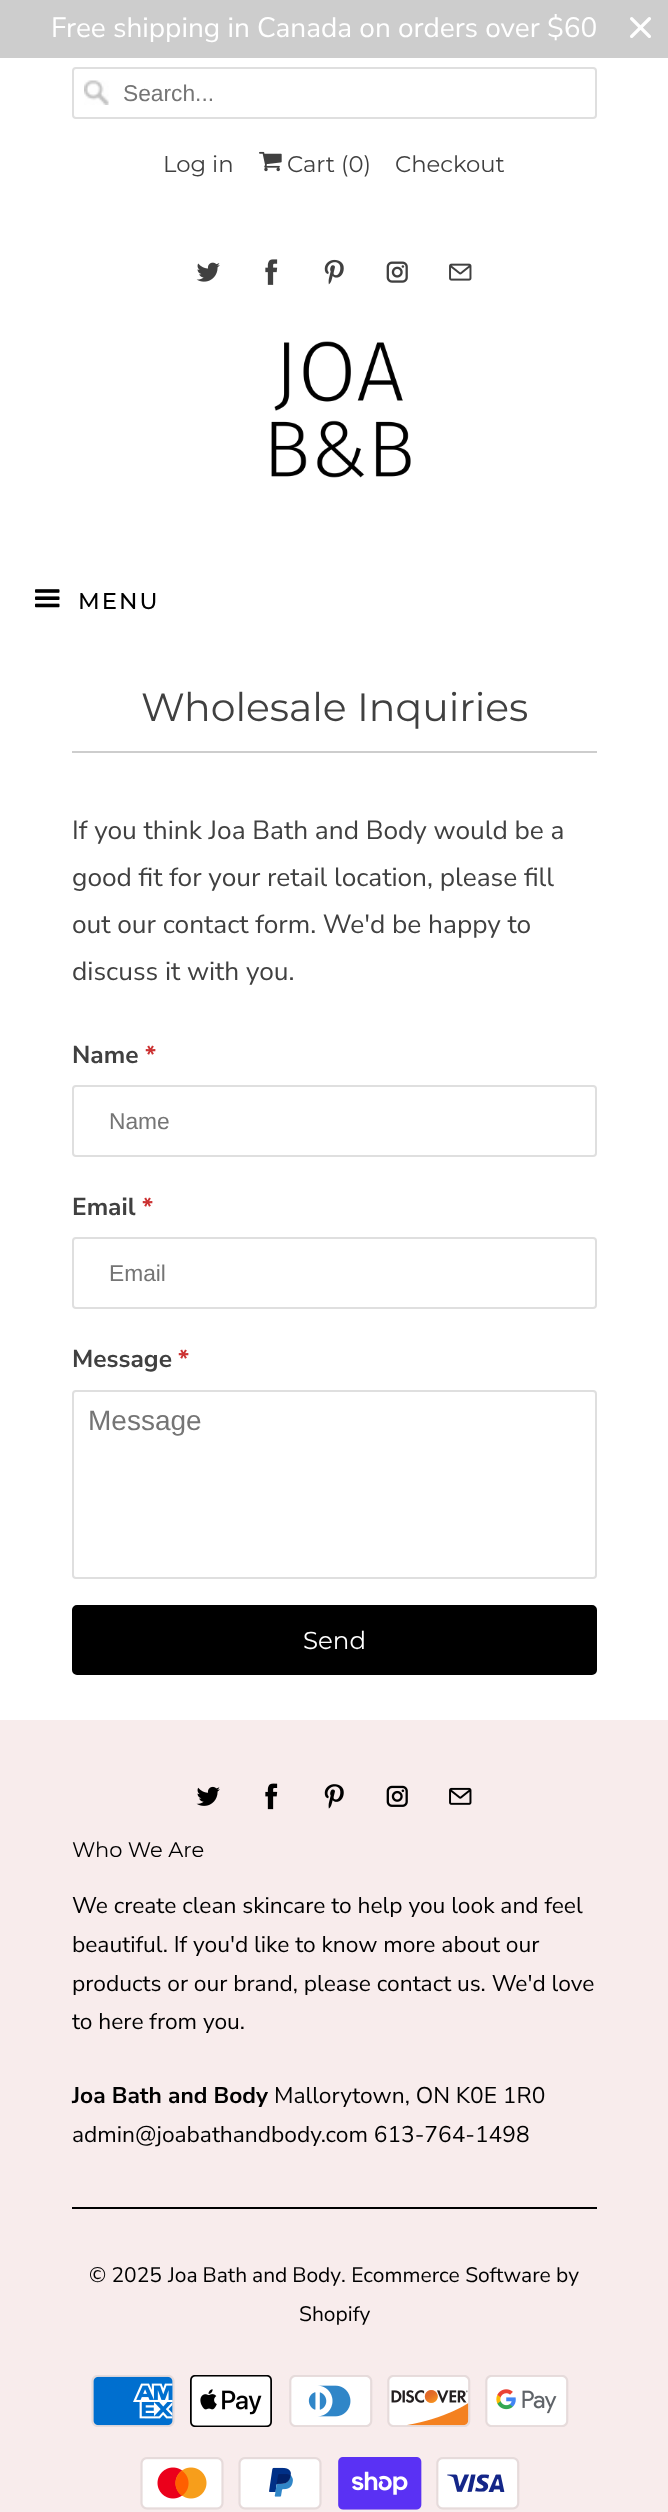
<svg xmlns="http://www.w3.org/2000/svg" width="668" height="2512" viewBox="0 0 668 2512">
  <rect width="100%" height="100%" fill="#ffffff"/>
  <rect x="0" y="0" width="668" height="58" fill="#cdcdcd"/>
  <text x="51" y="37" font-family="Nunito Sans" font-size="28" fill="#ffffff">Free shipping in Canada on orders over $60</text>
  <image x="630" y="17" width="21" height="21" href="img1.png"/>
  <image x="84" y="80" width="25" height="25" href="img2.png"/>
  <rect x="73" y="68" width="523" height="50" rx="3" fill="none" stroke="#dfdfdf" stroke-width="2"/>
  <text x="123" y="101" font-family="Liberation Sans" font-size="22.75" fill="#757575">Search...</text>
  <text x="163" y="172" font-family="Montserrat" font-size="22.75" fill="#404040">Log in</text>
  <image x="259" y="151" width="23" height="21" href="img3.png"/>
  <text x="287" y="172" font-family="Montserrat" font-size="22.75" fill="#404040">Cart (0)</text>
  <text x="395" y="172" font-family="Montserrat" font-size="22.75" fill="#404040">Checkout</text>
  <image x="196" y="262" width="24" height="20" href="img4.png"/>
  <image x="265" y="259" width="13" height="26" href="img5.png"/>
  <image x="324" y="259" width="20" height="26" href="img6.png"/>
  <image x="386" y="261" width="22" height="22" href="img7.png"/>
  <image x="449" y="263" width="23" height="18" href="img8.png"/>
  <image x="271" y="341" width="140" height="137" href="img9.png"/>
  <image x="35" y="589" width="25" height="19" href="img10.png"/>
  <text x="78" y="609" font-family="Montserrat" font-size="22.75" font-weight="500" letter-spacing="2" fill="#000000">MENU</text>
  <rect x="72" y="751" width="525" height="2" fill="#cdcdcd"/>
  <text x="141" y="721" font-family="Montserrat" font-size="39.4" fill="#404040">Wholesale Inquiries</text>
  <text x="72" y="839" font-family="Nunito Sans" font-size="26.25" fill="#404040">If you think Joa Bath and Body would be a</text>
  <text x="72" y="886" font-family="Nunito Sans" font-size="26.25" fill="#404040">good fit for your retail location, please fill</text>
  <text x="72" y="933" font-family="Nunito Sans" font-size="26.25" fill="#404040">out our contact form. We'd be happy to</text>
  <text x="72" y="980" font-family="Nunito Sans" font-size="26.25" fill="#404040">discuss it with you.</text>
  <text x="72" y="1063" font-family="Nunito Sans" font-size="24.5" font-weight="bold" fill="#404040">Name</text>
  <text x="145" y="1063" font-family="Nunito Sans" font-size="24.5" font-weight="bold" fill="#cc3333">*</text>
  <rect x="73" y="1086" width="523" height="70" rx="3" fill="none" stroke="#dfdfdf" stroke-width="2"/>
  <text x="109" y="1129" font-family="Liberation Sans" font-size="22.75" fill="#757575">Name</text>
  <text x="72" y="1215" font-family="Nunito Sans" font-size="24.5" font-weight="bold" fill="#404040">Email</text>
  <text x="142" y="1215" font-family="Nunito Sans" font-size="24.5" font-weight="bold" fill="#cc3333">*</text>
  <rect x="73" y="1238" width="523" height="70" rx="3" fill="none" stroke="#dfdfdf" stroke-width="2"/>
  <text x="109" y="1281" font-family="Liberation Sans" font-size="22.75" fill="#757575">Email</text>
  <text x="72" y="1367" font-family="Nunito Sans" font-size="24.5" font-weight="bold" fill="#404040">Message</text>
  <text x="178" y="1367" font-family="Nunito Sans" font-size="24.5" font-weight="bold" fill="#cc3333">*</text>
  <rect x="73" y="1391" width="523" height="187" rx="3" fill="none" stroke="#dfdfdf" stroke-width="2"/>
  <text x="88" y="1430" font-family="Liberation Sans" font-size="28" fill="#757575">Message</text>
  <rect x="73" y="1606" width="523" height="68" rx="4" fill="#000000" stroke="#000000" stroke-width="2"/>
  <text x="303" y="1649" font-family="Montserrat" font-size="24.5" fill="#ffffff">Send</text>
  <rect x="0" y="1720" width="668" height="792" fill="#f8ecec"/>
  <image x="196" y="1786" width="24" height="20" href="img11.png"/>
  <image x="265" y="1783" width="13" height="27" href="img12.png"/>
  <image x="324" y="1784" width="20" height="25" href="img13.png"/>
  <image x="386" y="1785" width="22" height="22" href="img14.png"/>
  <image x="449" y="1787" width="23" height="18" href="img15.png"/>
  <text x="72" y="1857" font-family="Montserrat" font-size="21" fill="#000000">Who We Are</text>
  <text x="72" y="1913" font-family="Nunito Sans" font-size="22.75" fill="#000000">We create clean skincare to help you look and feel</text>
  <text x="72" y="1952" font-family="Nunito Sans" font-size="22.75" fill="#000000">beautiful. If you'd like to know more about our</text>
  <text x="72" y="1991" font-family="Nunito Sans" font-size="22.75" fill="#000000">products or our brand, please contact us. We'd love</text>
  <text x="72" y="2029" font-family="Nunito Sans" font-size="22.75" fill="#000000">to here from you.</text>
  <text x="72" y="2103" font-family="Nunito Sans" font-size="22.75" font-weight="bold" fill="#000000">Joa Bath and Body</text>
  <text x="274" y="2103" font-family="Nunito Sans" font-size="22.75" fill="#000000">Mallorytown, ON K0E 1R0</text>
  <text x="72" y="2142" font-family="Nunito Sans" font-size="22.75" fill="#000000">admin@joabathandbody.com 613-764-1498</text>
  <rect x="72" y="2207" width="525" height="2" fill="#000000"/>
  <text x="89" y="2282" font-family="Nunito Sans" font-size="21" fill="#000000">© 2025</text>
  <text x="168" y="2282" word-spacing="-0.5" font-family="Nunito Sans" font-size="21" fill="#000000">Joa Bath and Body</text>
  <text x="341" y="2282" font-family="Nunito Sans" font-size="21" fill="#000000">. Ecommerce Software by</text>
  <text x="299" y="2321" font-family="Nunito Sans" font-size="21" fill="#000000">Shopify</text>
  <image x="91" y="2375" width="84" height="52" href="img16.png"/>
  <image x="190" y="2375" width="82" height="52" href="img17.png"/>
  <image x="289" y="2375" width="84" height="52" href="img18.png"/>
  <image x="387" y="2375" width="84" height="52" href="img19.png"/>
  <image x="485" y="2375" width="84" height="52" href="img20.png"/>
  <image x="140" y="2457" width="84" height="53" href="img21.png"/>
  <image x="238" y="2457" width="84" height="53" href="img22.png"/>
  <image x="338" y="2457" width="84" height="53" href="img23.png"/>
  <image x="436" y="2457" width="84" height="53" href="img24.png"/>
</svg>
